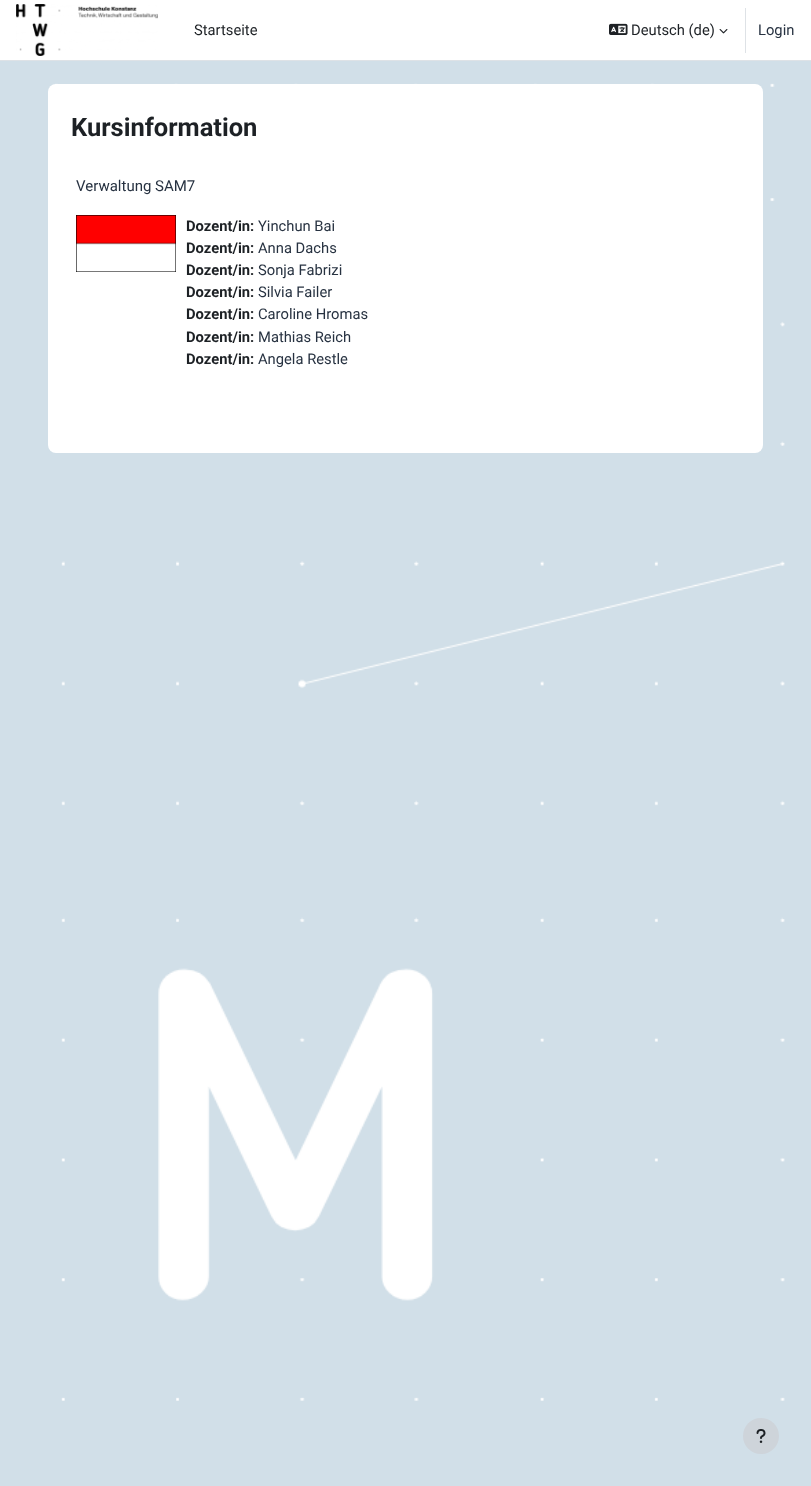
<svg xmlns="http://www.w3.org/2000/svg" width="811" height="1486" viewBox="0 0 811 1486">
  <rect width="100%" height="100%" fill="#ffffff"/>
  <image x="0" y="61" width="811" height="1425" href="img1.png"/>
  <rect x="0" y="60" width="811" height="1" fill="#dee2e6"/>
  <image x="16" y="4" width="142" height="52" href="img2.png"/>
  <text x="194" y="35" font-family="Roboto" font-size="14.75" fill="#1d2125">Startseite</text>
  <image x="609" y="23" width="19" height="12" href="img3.png"/>
  <text x="631" y="35" font-family="Roboto" font-size="14.75" fill="#1d2125">Deutsch (de)</text>
  <image x="719" y="29" width="9" height="5" href="img4.png"/>
  <rect x="745" y="8" width="1" height="45" fill="#dee2e6"/>
  <text x="758" y="35" font-family="Roboto" font-size="14.75" fill="#273241">Login</text>
  <rect x="48" y="84" width="715" height="369" rx="8" fill="#ffffff"/>
  <text x="71" y="136" font-family="Roboto" font-size="25.5" font-weight="bold" fill="#1d2125">Kursinformation</text>
  <text x="76" y="191" font-family="Roboto" font-size="15" fill="#273241">Verwaltung SAM7</text>
  <image x="76" y="215" width="100" height="57" href="img5.png"/>
  <text x="186" y="231" font-family="Roboto" font-size="14.75" font-weight="bold" fill="#1d2125">Dozent/in:</text>
  <text x="258" y="231" font-family="Roboto" font-size="14.75" fill="#273241">Yinchun Bai</text>
  <text x="186" y="253" font-family="Roboto" font-size="14.75" font-weight="bold" fill="#1d2125">Dozent/in:</text>
  <text x="258" y="253" font-family="Roboto" font-size="14.75" fill="#273241">Anna Dachs</text>
  <text x="186" y="275" font-family="Roboto" font-size="14.75" font-weight="bold" fill="#1d2125">Dozent/in:</text>
  <text x="258" y="275" font-family="Roboto" font-size="14.75" fill="#273241">Sonja Fabrizi</text>
  <text x="186" y="297" font-family="Roboto" font-size="14.75" font-weight="bold" fill="#1d2125">Dozent/in:</text>
  <text x="258" y="297" font-family="Roboto" font-size="14.75" fill="#273241">Silvia Failer</text>
  <text x="186" y="319" font-family="Roboto" font-size="14.75" font-weight="bold" fill="#1d2125">Dozent/in:</text>
  <text x="258" y="319" font-family="Roboto" font-size="14.75" fill="#273241">Caroline Hromas</text>
  <text x="186" y="342" font-family="Roboto" font-size="14.75" font-weight="bold" fill="#1d2125">Dozent/in:</text>
  <text x="258" y="342" font-family="Roboto" font-size="14.75" fill="#273241">Mathias Reich</text>
  <text x="186" y="364" font-family="Roboto" font-size="14.75" font-weight="bold" fill="#1d2125">Dozent/in:</text>
  <text x="258" y="364" font-family="Roboto" font-size="14.75" fill="#273241">Angela Restle</text>
  <circle cx="761" cy="1436" r="18" fill="#ced4da"/>
  <image x="756" y="1429" width="10" height="14" href="img6.png"/>
</svg>
